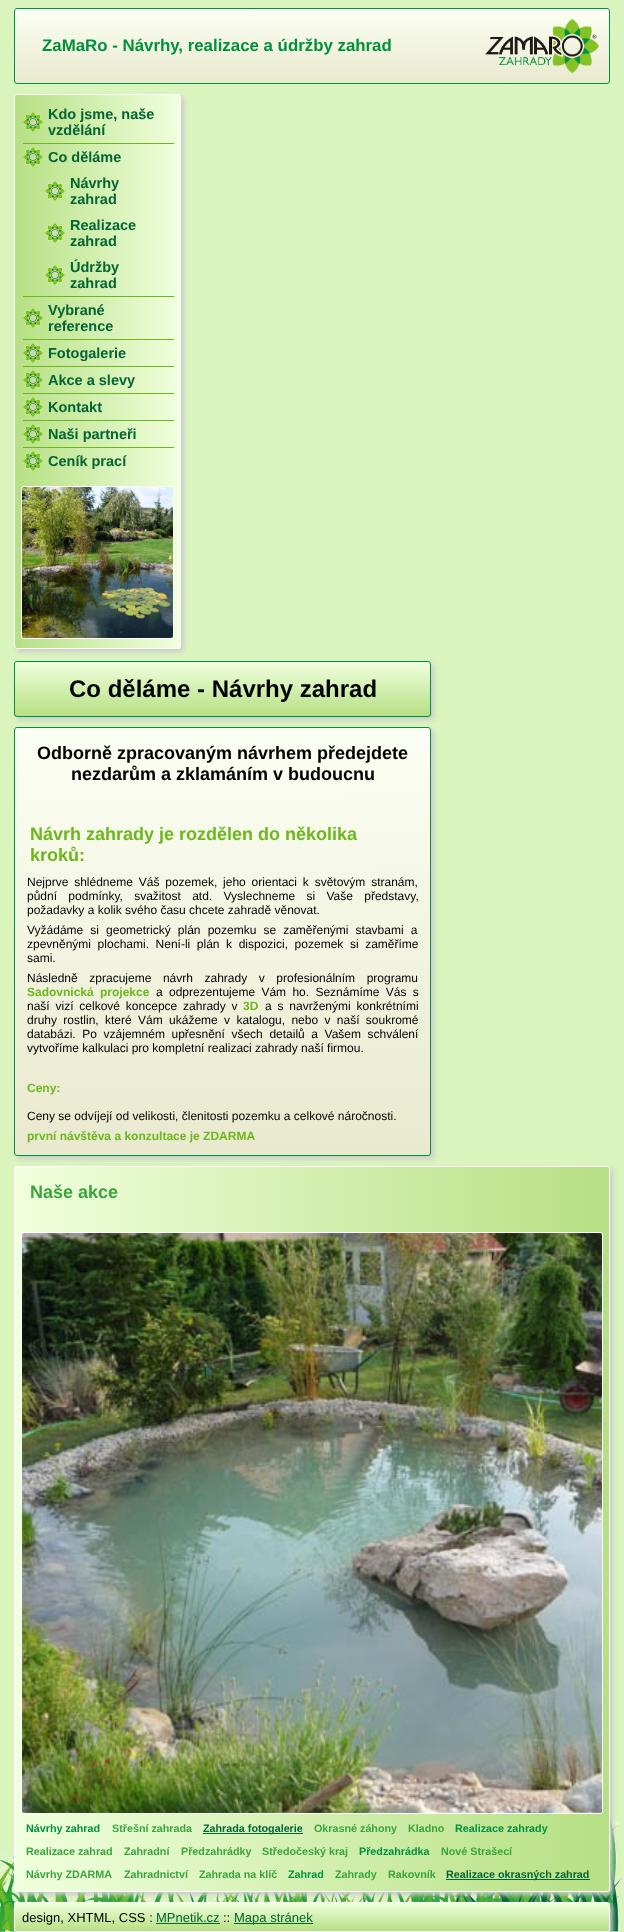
<svg xmlns="http://www.w3.org/2000/svg" width="624" height="1932" viewBox="0 0 624 1932">
  <defs>
    <clipPath id="clip1"><rect x="14" y="8" width="596" height="76" rx="3"/></clipPath>
    <linearGradient id="g1" gradientUnits="userSpaceOnUse" x1="312" y1="9" x2="312" y2="83"><stop offset="0" stop-color="#fcfff4"/><stop offset="1" stop-color="#e9e9ce"/></linearGradient>
    <filter id="blur1" x="-50%" y="-200%" width="200%" height="500%"><feGaussianBlur stdDeviation="2.5"/></filter>
    <clipPath id="clip2"><rect x="14" y="94" width="167" height="555" rx="3"/></clipPath>
    <linearGradient id="g2" gradientUnits="userSpaceOnUse" x1="15" y1="372" x2="180" y2="372"><stop offset="0" stop-color="#b6e084"/><stop offset="1" stop-color="#f0ffdd"/></linearGradient>
    <clipPath id="clip3"><rect x="14" y="661" width="417" height="56" rx="3"/></clipPath>
    <linearGradient id="g3" gradientUnits="userSpaceOnUse" x1="223" y1="662" x2="223" y2="716"><stop offset="0" stop-color="#f0ffdd"/><stop offset="1" stop-color="#b6e084"/></linearGradient>
    <clipPath id="clip4"><rect x="14" y="727" width="417" height="429" rx="3"/></clipPath>
    <linearGradient id="g4" gradientUnits="userSpaceOnUse" x1="222" y1="728" x2="223" y2="1155"><stop offset="0" stop-color="#fcfff4"/><stop offset="1" stop-color="#e9e9ce"/></linearGradient>
    <clipPath id="clip5"><rect x="14" y="1902" width="596" height="30" rx="3"/></clipPath>
    <linearGradient id="g5" gradientUnits="userSpaceOnUse" x1="312" y1="1903" x2="312" y2="1931"><stop offset="0" stop-color="#f0ffdd"/><stop offset="1" stop-color="#b6e084"/></linearGradient>
    <clipPath id="clip6"><rect x="14" y="1166" width="596" height="726" rx="3"/></clipPath>
    <linearGradient id="g6" gradientUnits="userSpaceOnUse" x1="15" y1="1529" x2="609" y2="1529"><stop offset="0" stop-color="#f0ffdd"/><stop offset="1" stop-color="#b6e084"/></linearGradient>
  </defs>
  <rect width="100%" height="100%" fill="#daf4bd"/>
  <image x="0" y="1804" width="624" height="128" href="img1.png"/>
  <g clip-path="url(#clip1)">
    <rect x="14" y="9" width="596" height="74" fill="url(#g1)"/>
  </g>
  <rect x="14.5" y="8.5" width="595" height="75" rx="2.5" fill="none" stroke="#00913d"/>
  <image x="485" y="19" width="114" height="54" href="img2.png"/>
  <text x="42" y="51" font-family="Liberation Sans" font-size="16.85" font-weight="bold" fill="#00913d">ZaMaRo - Návrhy, realizace a údržby zahrad</text>
  <rect x="17" y="97" width="167" height="555" rx="3" fill="#cccccc" filter="url(#blur1)"/>
  <g clip-path="url(#clip2)">
    <rect x="15" y="94" width="165" height="555" fill="url(#g2)"/>
  </g>
  <rect x="14.5" y="94.5" width="166" height="554" rx="2.5" fill="none" stroke="#ffffff"/>
  <rect x="23" y="143" width="151" height="1" fill="#6db71d"/>
  <image x="23" y="112" width="20" height="20" href="img3.png"/>
  <text x="48" y="119" font-family="Liberation Sans" font-size="14.5" font-weight="bold" fill="#046434">Kdo jsme, naše</text>
  <text x="48" y="135" font-family="Liberation Sans" font-size="14.5" font-weight="bold" fill="#046434">vzdělání</text>
  <rect x="23" y="296" width="151" height="1" fill="#6db71d"/>
  <image x="23" y="147" width="20" height="20" href="img3.png"/>
  <text x="48" y="162" font-family="Liberation Sans" font-size="14.5" font-weight="bold" fill="#046434">Co děláme</text>
  <image x="45" y="181" width="20" height="20" href="img4.png"/>
  <text x="70" y="188" font-family="Liberation Sans" font-size="14.5" font-weight="bold" fill="#046434">Návrhy</text>
  <text x="70" y="204" font-family="Liberation Sans" font-size="14.5" font-weight="bold" fill="#046434">zahrad</text>
  <image x="45" y="223" width="20" height="20" href="img4.png"/>
  <text x="70" y="230" font-family="Liberation Sans" font-size="14.5" font-weight="bold" fill="#046434">Realizace</text>
  <text x="70" y="246" font-family="Liberation Sans" font-size="14.5" font-weight="bold" fill="#046434">zahrad</text>
  <image x="45" y="265" width="20" height="20" href="img4.png"/>
  <text x="70" y="272" font-family="Liberation Sans" font-size="14.5" font-weight="bold" fill="#046434">Údržby</text>
  <text x="70" y="288" font-family="Liberation Sans" font-size="14.5" font-weight="bold" fill="#046434">zahrad</text>
  <rect x="23" y="339" width="151" height="1" fill="#6db71d"/>
  <image x="23" y="308" width="20" height="20" href="img3.png"/>
  <text x="48" y="315" font-family="Liberation Sans" font-size="14.5" font-weight="bold" fill="#046434">Vybrané</text>
  <text x="48" y="331" font-family="Liberation Sans" font-size="14.5" font-weight="bold" fill="#046434">reference</text>
  <rect x="23" y="366" width="151" height="1" fill="#6db71d"/>
  <image x="23" y="343" width="20" height="20" href="img3.png"/>
  <text x="48" y="358" font-family="Liberation Sans" font-size="14.5" font-weight="bold" fill="#046434">Fotogalerie</text>
  <rect x="23" y="393" width="151" height="1" fill="#6db71d"/>
  <image x="23" y="370" width="20" height="20" href="img3.png"/>
  <text x="48" y="385" font-family="Liberation Sans" font-size="14.5" font-weight="bold" fill="#046434">Akce a slevy</text>
  <rect x="23" y="420" width="151" height="1" fill="#6db71d"/>
  <image x="23" y="397" width="20" height="20" href="img3.png"/>
  <text x="48" y="412" font-family="Liberation Sans" font-size="14.5" font-weight="bold" fill="#046434">Kontakt</text>
  <rect x="23" y="447" width="151" height="1" fill="#6db71d"/>
  <image x="23" y="424" width="20" height="20" href="img3.png"/>
  <text x="48" y="439" font-family="Liberation Sans" font-size="14.5" font-weight="bold" fill="#046434">Naši partneři</text>
  <image x="23" y="451" width="20" height="20" href="img3.png"/>
  <text x="48" y="466" font-family="Liberation Sans" font-size="14.5" font-weight="bold" fill="#046434">Ceník prací</text>
  <rect x="21.5" y="486.5" width="152" height="152" rx="2.5" fill="none" stroke="#ffffff"/>
  <image x="22" y="487" width="151" height="151" href="img5.png"/>
  <rect x="17" y="664" width="417" height="56" rx="3" fill="#cccccc" filter="url(#blur1)"/>
  <g clip-path="url(#clip3)">
    <rect x="14" y="662" width="417" height="54" fill="url(#g3)"/>
  </g>
  <rect x="14.5" y="661.5" width="416" height="55" rx="2.5" fill="none" stroke="#00913d"/>
  <text x="69" y="697" font-family="Liberation Sans" font-size="24" font-weight="bold" fill="#000000">Co děláme - Návrhy zahrad</text>
  <rect x="17" y="730" width="417" height="429" rx="3" fill="#cccccc" filter="url(#blur1)"/>
  <g clip-path="url(#clip4)">
    <rect x="14" y="728" width="417" height="427" fill="url(#g4)"/>
  </g>
  <rect x="14.5" y="727.5" width="416" height="428" rx="2.5" fill="none" stroke="#00913d"/>
  <text x="37" y="759" font-family="Liberation Sans" font-size="18" font-weight="bold" fill="#000000">Odborně zpracovaným návrhem předejdete</text>
  <text x="71" y="780" font-family="Liberation Sans" font-size="18" font-weight="bold" fill="#000000">nezdarům a zklamáním v budoucnu</text>
  <text x="30" y="840" font-family="Liberation Sans" font-size="18" font-weight="bold" fill="#6db71d">Návrh zahrady je rozdělen do několika</text>
  <text x="30" y="861" font-family="Liberation Sans" font-size="18" font-weight="bold" fill="#6db71d">kroků:</text>
  <text x="27" y="886" word-spacing="2.5" font-family="Liberation Sans" font-size="12" fill="#000000">Nejprve shlédneme Váš pozemek, jeho orientaci k světovým stranám,</text>
  <text x="27" y="900" word-spacing="8" font-family="Liberation Sans" font-size="12" fill="#000000">půdní podmínky, svažitost atd. Vyslechneme si Vaše představy,</text>
  <text x="27" y="914" font-family="Liberation Sans" font-size="12" fill="#000000">požadavky a kolik svého času chcete zahradě věnovat.</text>
  <text x="27" y="934" word-spacing="3.75" font-family="Liberation Sans" font-size="12" fill="#000000">Vyžádáme si geometrický plán pozemku se zaměřenými stavbami a</text>
  <text x="27" y="948" word-spacing="3.25" font-family="Liberation Sans" font-size="12" fill="#000000">zpevněnými plochami. Není-li plán k dispozici, pozemek si zaměříme</text>
  <text x="27" y="962" font-family="Liberation Sans" font-size="12" fill="#000000">sami.</text>
  <text x="27" y="982" word-spacing="8.25" font-family="Liberation Sans" font-size="12" fill="#000000">Následně zpracujeme návrh zahrady v profesionálním programu</text>
  <text x="27" y="996" word-spacing="3" font-family="Liberation Sans" font-size="12" font-weight="bold" fill="#6db71d">Sadovnická projekce</text>
  <text x="156" y="996" word-spacing="3" font-family="Liberation Sans" font-size="12" fill="#000000">a odprezentujeme Vám ho. Seznámíme Vás s</text>
  <text x="27" y="1010" word-spacing="2.5" font-family="Liberation Sans" font-size="12" fill="#000000">naší vizí celkové koncepce zahrady v</text>
  <text x="243" y="1010" font-family="Liberation Sans" font-size="12" font-weight="bold" fill="#6db71d">3D</text>
  <text x="265" y="1010" word-spacing="2.5" font-family="Liberation Sans" font-size="12" fill="#000000">a s navrženými konkrétními</text>
  <text x="27" y="1024" word-spacing="3" font-family="Liberation Sans" font-size="12" fill="#000000">druhy rostlin, které Vám ukážeme v katalogu, nebo v naší soukromé</text>
  <text x="27" y="1038" word-spacing="3.25" font-family="Liberation Sans" font-size="12" fill="#000000">databázi. Po vzájemném upřesnění všech detailů a Vašem schválení</text>
  <text x="27" y="1052" font-family="Liberation Sans" font-size="12" fill="#000000">vytvoříme kalkulaci pro kompletní realizaci zahrady naší firmou.</text>
  <text x="27" y="1092" font-family="Liberation Sans" font-size="12" font-weight="bold" fill="#6db71d">Ceny:</text>
  <text x="27" y="1120" font-family="Liberation Sans" font-size="12" fill="#000000">Ceny se odvíjejí od velikosti, členitosti pozemku a celkové náročnosti.</text>
  <text x="27" y="1140" font-family="Liberation Sans" font-size="12" font-weight="bold" fill="#6db71d">první návštěva a konzultace je ZDARMA</text>
  <rect x="17" y="1905" width="596" height="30" rx="3" fill="#cccccc" filter="url(#blur1)"/>
  <g clip-path="url(#clip5)">
    <rect x="14" y="1903" width="596" height="28" fill="url(#g5)"/>
  </g>
  <rect x="14.5" y="1902.5" width="595" height="29" rx="2.5" fill="none" stroke="#ffffff"/>
  <rect x="17" y="1169" width="596" height="726" rx="3" fill="#cccccc" filter="url(#blur1)"/>
  <g clip-path="url(#clip6)">
    <rect x="15" y="1166" width="594" height="726" fill="url(#g6)"/>
  </g>
  <rect x="14.5" y="1166.5" width="595" height="725" rx="2.5" fill="none" stroke="#ffffff"/>
  <text x="30" y="1198" font-family="Liberation Sans" font-size="18" font-weight="bold" fill="#3aa43d">Naše akce</text>
  <rect x="21.5" y="1232.5" width="581" height="581" rx="2.5" fill="none" stroke="#ffffff"/>
  <image x="22" y="1233" width="580" height="580" href="img6.png"/>
  <text x="26" y="1832" font-family="Liberation Sans" font-size="10.75" font-weight="bold" fill="#00913d">Návrhy zahrad</text>
  <text x="112" y="1832" font-family="Liberation Sans" font-size="10.75" font-weight="bold" fill="#3aa43d">Střešní zahrada</text>
  <rect x="203" y="1833" width="100" height="1" fill="#046434"/>
  <text x="203" y="1832" font-family="Liberation Sans" font-size="10.75" font-weight="bold" fill="#046434">Zahrada fotogalerie</text>
  <text x="314" y="1832" font-family="Liberation Sans" font-size="10.75" font-weight="bold" fill="#3aa43d">Okrasné záhony</text>
  <text x="408" y="1832" font-family="Liberation Sans" font-size="10.75" font-weight="bold" fill="#3aa43d">Kladno</text>
  <text x="455" y="1832" font-family="Liberation Sans" font-size="10.75" font-weight="bold" fill="#00913d">Realizace zahrady</text>
  <text x="26" y="1855" font-family="Liberation Sans" font-size="10.75" font-weight="bold" fill="#3aa43d">Realizace zahrad</text>
  <text x="124" y="1855" font-family="Liberation Sans" font-size="10.75" font-weight="bold" fill="#3aa43d">Zahradní</text>
  <text x="181" y="1855" font-family="Liberation Sans" font-size="10.75" font-weight="bold" fill="#3aa43d">Předzahrádky</text>
  <text x="262" y="1855" font-family="Liberation Sans" font-size="10.75" font-weight="bold" fill="#3aa43d">Středočeský kraj</text>
  <text x="359" y="1855" font-family="Liberation Sans" font-size="10.75" font-weight="bold" fill="#00913d">Předzahrádka</text>
  <text x="441" y="1855" font-family="Liberation Sans" font-size="10.75" font-weight="bold" fill="#3aa43d">Nové Strašecí</text>
  <text x="26" y="1878" font-family="Liberation Sans" font-size="10.75" font-weight="bold" fill="#3aa43d">Návrhy ZDARMA</text>
  <text x="124" y="1878" font-family="Liberation Sans" font-size="10.75" font-weight="bold" fill="#3aa43d">Zahradnictví</text>
  <text x="199" y="1878" font-family="Liberation Sans" font-size="10.75" font-weight="bold" fill="#3aa43d">Zahrada na klíč</text>
  <text x="288" y="1878" font-family="Liberation Sans" font-size="10.75" font-weight="bold" fill="#00913d">Zahrad</text>
  <text x="335" y="1878" font-family="Liberation Sans" font-size="10.75" font-weight="bold" fill="#3aa43d">Zahrady</text>
  <text x="388" y="1878" font-family="Liberation Sans" font-size="10.75" font-weight="bold" fill="#3aa43d">Rakovník</text>
  <rect x="446" y="1879" width="144" height="1" fill="#046434"/>
  <text x="446" y="1878" font-family="Liberation Sans" font-size="10.75" font-weight="bold" fill="#046434">Realizace okrasných zahrad</text>
  <text x="22" y="1922" font-family="Liberation Sans" font-size="13" fill="#000000">design, XHTML, CSS :</text>
  <text x="156" y="1922" font-family="Liberation Sans" font-size="13" fill="#046434">MPnetik.cz</text>
  <rect x="156" y="1923" width="64" height="1" fill="#046434"/>
  <text x="223" y="1922" font-family="Liberation Sans" font-size="13" fill="#000000">::</text>
  <rect x="234" y="1923" width="79" height="1" fill="#046434"/>
  <text x="234" y="1922" font-family="Liberation Sans" font-size="13" fill="#046434">Mapa stránek</text>
</svg>
